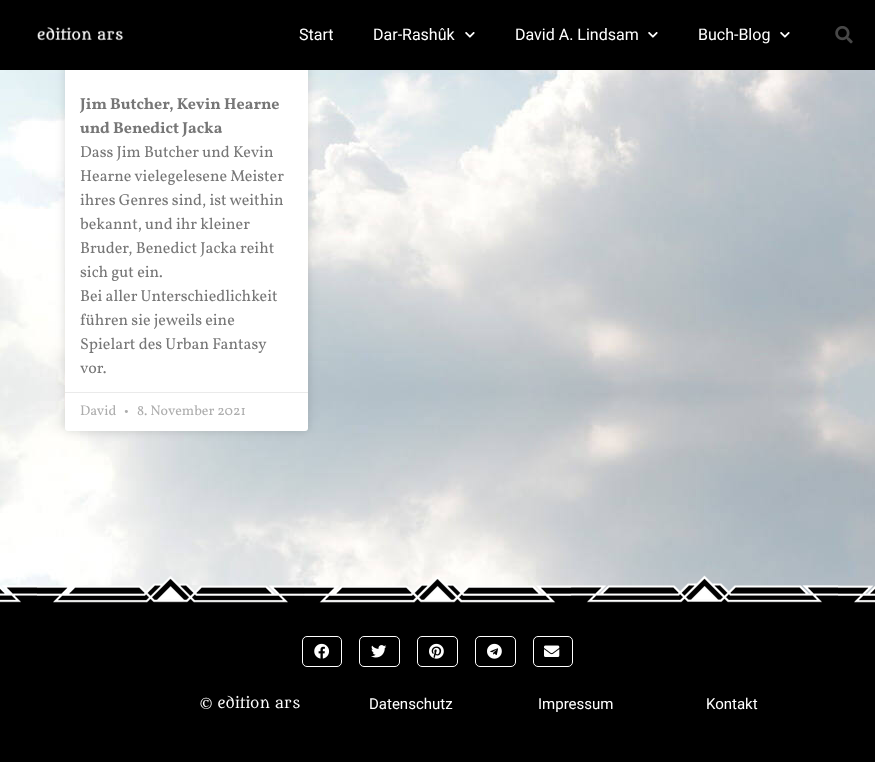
<svg xmlns="http://www.w3.org/2000/svg" width="875" height="762" viewBox="0 0 875 762">
  <defs>
    <filter id="blur1" x="-50%" y="-200%" width="200%" height="500%"><feGaussianBlur stdDeviation="5"/></filter>
  </defs>
  <rect width="100%" height="100%" fill="#000000"/>
  <image x="0" y="70" width="875" height="532" href="img4.png"/>
  <rect x="65" y="-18" width="243" height="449" rx="3" fill="#000000" fill-opacity="0.15" filter="url(#blur1)"/>
  <rect x="65" y="-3" width="243" height="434" rx="3" fill="#ffffff"/>
  <rect x="65" y="0" width="243" height="70" fill="#000000"/>
  <image x="37" y="27" width="87" height="14" href="img1.png"/>
  <text x="299" y="40" font-family="Roboto" font-size="16" fill="#ffffff">Start</text>
  <text x="373" y="40" font-family="Roboto" font-size="16" fill="#ffffff">Dar-Rashûk</text>
  <image x="465" y="32" width="10" height="6" href="img2.png"/>
  <text x="515" y="40" font-family="Roboto" font-size="16" fill="#ffffff">David A. Lindsam</text>
  <image x="648" y="32" width="10" height="6" href="img2.png"/>
  <text x="698" y="40" font-family="Roboto" font-size="16" fill="#ffffff">Buch-Blog</text>
  <image x="780" y="32" width="10" height="6" href="img2.png"/>
  <image x="835" y="26" width="18" height="18" href="img3.png"/>
  <text x="80" y="109" font-family="Vollkorn" font-size="16" font-weight="bold" fill="#777777">Jim Butcher, Kevin Hearne</text>
  <text x="80" y="133" font-family="Vollkorn" font-size="16" font-weight="bold" fill="#777777">und Benedict Jacka</text>
  <text x="80" y="157" font-family="Vollkorn" font-size="16" fill="#777777">Dass Jim Butcher und Kevin</text>
  <text x="80" y="181" font-family="Vollkorn" font-size="16" fill="#777777">Hearne vielegelesene Meister</text>
  <text x="80" y="205" font-family="Vollkorn" font-size="16" fill="#777777">ihres Genres sind, ist weithin</text>
  <text x="80" y="229" font-family="Vollkorn" font-size="16" fill="#777777">bekannt, und ihr kleiner</text>
  <text x="80" y="253" font-family="Vollkorn" font-size="16" fill="#777777">Bruder, Benedict Jacka reiht</text>
  <text x="80" y="277" font-family="Vollkorn" font-size="16" fill="#777777">sich gut ein.</text>
  <text x="80" y="301" font-family="Vollkorn" font-size="16" fill="#777777">Bei aller Unterschiedlichkeit</text>
  <text x="80" y="325" font-family="Vollkorn" font-size="16" fill="#777777">führen sie jeweils eine</text>
  <text x="80" y="349" font-family="Vollkorn" font-size="16" fill="#777777">Spielart des Urban Fantasy</text>
  <text x="80" y="373" font-family="Vollkorn" font-size="16" fill="#777777">vor.</text>
  <rect x="65" y="392" width="243" height="1" fill="#eaeaea"/>
  <text x="80" y="415" font-family="Vollkorn" font-size="14" fill="#adadad">David</text>
  <text x="124" y="415" font-family="Vollkorn" font-size="14" fill="#adadad">•</text>
  <text x="137" y="415" font-family="Vollkorn" font-size="14" fill="#adadad">8. November 2021</text>
  <image x="0" y="575" width="875" height="51" href="img5.png"/>
  <rect x="302.5" y="636.5" width="39" height="30" rx="4.5" fill="none" stroke="#ffffff"/>
  <image x="314" y="643" width="16" height="16" href="img6.png"/>
  <rect x="359.5" y="636.5" width="40" height="30" rx="4.5" fill="none" stroke="#ffffff"/>
  <image x="371" y="645" width="16" height="13" href="img7.png"/>
  <rect x="417.5" y="636.5" width="40" height="30" rx="4.5" fill="none" stroke="#ffffff"/>
  <image x="429" y="643" width="15" height="16" href="img8.png"/>
  <rect x="475.5" y="636.5" width="40" height="30" rx="4.5" fill="none" stroke="#ffffff"/>
  <image x="487" y="643" width="15" height="16" href="img9.png"/>
  <rect x="533.5" y="636.5" width="39" height="30" rx="4.5" fill="none" stroke="#ffffff"/>
  <image x="544" y="645" width="16" height="12" href="img10.png"/>
  <text x="200" y="708" font-family="Metamorphous" font-size="14" fill="#ffffff">© edition ars</text>
  <text x="369" y="709" font-family="Roboto" font-size="15" fill="#ffffff">Datenschutz</text>
  <text x="538" y="709" font-family="Roboto" font-size="15" fill="#ffffff">Impressum</text>
  <text x="706" y="709" font-family="Roboto" font-size="15" fill="#ffffff">Kontakt</text>
</svg>
